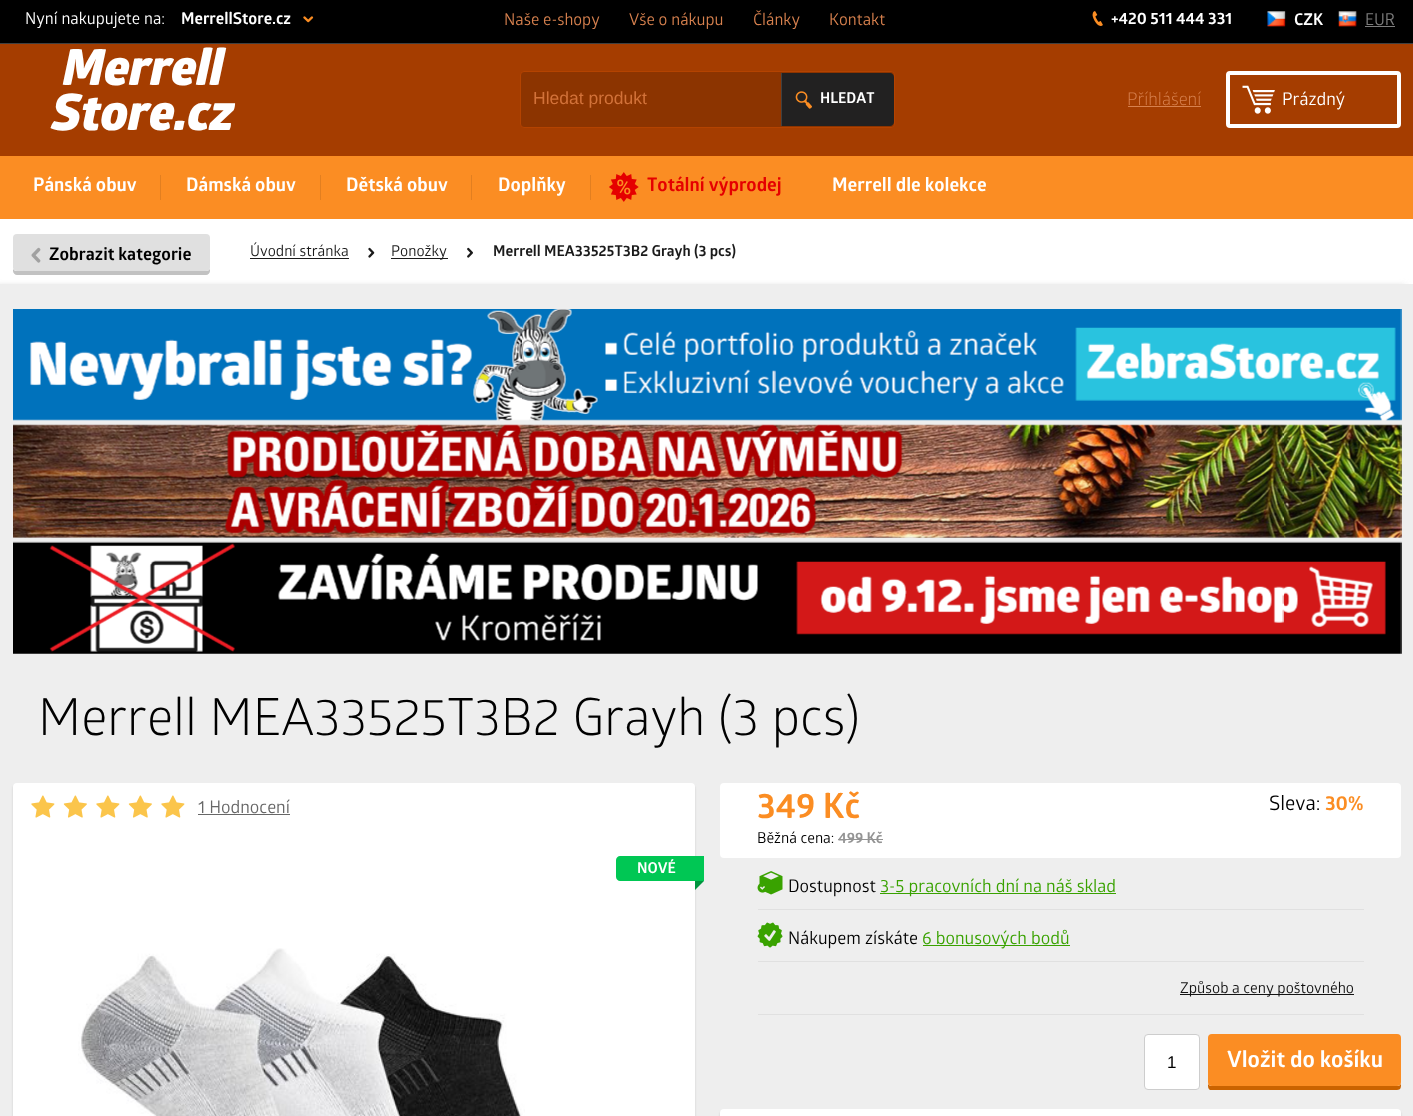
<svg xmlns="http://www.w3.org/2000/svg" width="1413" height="1116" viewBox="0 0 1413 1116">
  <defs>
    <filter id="blur1" x="-50%" y="-200%" width="200%" height="500%"><feGaussianBlur stdDeviation="3"/></filter>
    <filter id="blur2" x="-50%" y="-200%" width="200%" height="500%"><feGaussianBlur stdDeviation="1"/></filter>
  </defs>
  <rect width="100%" height="100%" fill="#ffffff"/>
  <rect x="0" y="44" width="1413" height="112" fill="#a53d00"/>
  <rect x="0" y="0" width="1413" height="43" fill="#000000"/>
  <text x="504" y="25" font-family="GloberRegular" font-size="16.25" fill="#d7814e">Naše e-shopy</text>
  <text x="629" y="25" font-family="GloberRegular" font-size="16.25" fill="#d7814e">Vše o nákupu</text>
  <text x="753" y="25" font-family="GloberRegular" font-size="16.25" fill="#d7814e">Články</text>
  <text x="829" y="25" font-family="GloberRegular" font-size="16.25" fill="#d7814e">Kontakt</text>
  <text x="63" y="85" font-family="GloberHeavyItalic" font-size="50" fill="#ffffff">Merrell</text>
  <text x="52" y="130" font-family="GloberHeavyItalic" font-size="50" fill="#ffffff">Store.cz</text>
  <rect x="520.5" y="71.5" width="374" height="56" rx="3.5" fill="#8c3400" stroke="#b44300"/>
  <text x="533" y="104" font-family="Liberation Sans" font-size="17.5" fill="#d27239">Hledat produkt</text>
  <path d="M781 73H890C892 73 894 75 894 77V122C894 124 892 126 890 126H781Z" fill="#222121"/>
  <image x="795" y="91" width="17" height="18" href="img1.png"/>
  <rect x="781" y="73" width="1" height="53" fill="#404040"/>
  <text x="820" y="103" font-family="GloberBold" font-size="15" fill="#ffffff">HLEDAT</text>
  <text x="1127" y="105" font-family="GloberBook" font-size="17.5" fill="#d7814e">Příhlášení</text>
  <rect x="1128" y="106" width="73" height="1" fill="#d7814e"/>
  <rect x="1228" y="73" width="171" height="53" rx="2" fill="none" stroke="#ffffff" stroke-width="4"/>
  <image x="1242" y="85" width="33" height="29" href="img2.png"/>
  <text x="1282" y="105" font-family="GloberRegular" font-size="17.5" fill="#ffffff">Prázdný</text>
  <rect x="0" y="156" width="1413" height="63" fill="#fb8d23"/>
  <text x="33" y="191" font-family="GloberBold" font-size="18.75" fill="#ffffff">Pánská obuv</text>
  <rect x="160" y="175" width="1" height="25" fill="#e27f20"/>
  <text x="186" y="191" font-family="GloberBold" font-size="18.75" fill="#ffffff">Dámská obuv</text>
  <rect x="320" y="175" width="1" height="25" fill="#e27f20"/>
  <text x="346" y="191" font-family="GloberBold" font-size="18.75" fill="#ffffff">Dětská obuv</text>
  <rect x="471" y="175" width="1" height="25" fill="#e27f20"/>
  <text x="498" y="191" font-family="GloberBold" font-size="18.75" fill="#ffffff">Doplňky</text>
  <rect x="590" y="175" width="1" height="25" fill="#e27f20"/>
  <image x="609" y="172" width="30" height="30" href="img3.png"/>
  <text x="647" y="191" font-family="GloberBold" font-size="18.75" fill="#e50000">Totální výprodej</text>
  <text x="832" y="191" font-family="GloberBold" font-size="18.75" fill="#ffffff">Merrell dle kolekce</text>
  <rect x="0" y="43" width="1413" height="1" fill="#404040"/>
  <text x="25" y="24" font-family="GloberRegular" font-size="16.25" fill="#ffffff">Nyní nakupujete na:</text>
  <text x="181" y="24" font-family="GloberBold" font-size="16.25" fill="#ffffff">MerrellStore.cz</text>
  <image x="303" y="16" width="11" height="7" href="img4.png"/>
  <image x="1092" y="11" width="11" height="15" href="img5.png"/>
  <text x="1111" y="24" font-family="GloberBold" font-size="16.25" fill="#ffffff">+420 511 444 331</text>
  <image x="1267" y="11" width="19" height="16" href="img6.png"/>
  <text x="1294" y="25" font-family="GloberBold" font-size="16.25" fill="#ffffff">CZK</text>
  <image x="1338" y="11" width="19" height="16" href="img7.png"/>
  <text x="1365" y="25" font-family="GloberRegular" font-size="16.25" fill="#7e7e7e">EUR</text>
  <rect x="1365" y="26" width="30" height="1" fill="#7e7e7e"/>
  <text x="250" y="256" font-family="GloberRegular" font-size="15" fill="#1a1a1a">Úvodní stránka</text>
  <rect x="250" y="258" width="99" height="1" fill="#1a1a1a"/>
  <image x="368" y="247" width="7" height="11" href="img8.png"/>
  <rect x="391" y="258" width="57" height="1" fill="#1a1a1a"/>
  <text x="391" y="256" font-family="GloberRegular" font-size="15" fill="#1a1a1a">Ponožky</text>
  <image x="467" y="247" width="6" height="11" href="img9.png"/>
  <text x="493" y="256" font-family="GloberBold" font-size="15" fill="#1a1a1a">Merrell MEA33525T3B2 Grayh (3 pcs)</text>
  <path d="M13 269V271C13 273 15 275 17 275H206C208 275 210 273 210 271V268C210 270 208 271 206 271H16C15 271 14 270 13 269Z" fill="#c2c2c2"/>
  <rect x="13" y="234" width="197" height="37" rx="4" fill="#e0e0e0"/>
  <image x="31" y="247" width="10" height="16" href="img10.png"/>
  <text x="49" y="260" font-family="GloberBold" font-size="17.5" fill="#000000">Zobrazit kategorie</text>
  <rect x="-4" y="286" width="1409" height="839" fill="#d1d1d1" filter="url(#blur1)"/>
  <rect x="0" y="284" width="1413" height="832" fill="#eeeeee"/>
  <image x="13" y="309" width="1389" height="112" href="img11.png"/>
  <image x="13" y="424" width="1389" height="114" href="img12.png"/>
  <image x="13" y="541" width="1389" height="113" href="img13.png"/>
  <text x="38" y="735" font-family="GloberBook" font-size="51.25" fill="#000000">Merrell MEA33525T3B2 Grayh (3 pcs)</text>
  <rect x="13" y="785" width="682" height="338" rx="4" fill="#cdcdcd" filter="url(#blur2)"/>
  <rect x="13" y="783" width="682" height="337" rx="4" fill="#ffffff"/>
  <image x="31" y="795" width="24" height="23" href="img14.png"/>
  <image x="63" y="795" width="24" height="23" href="img15.png"/>
  <image x="96" y="795" width="24" height="23" href="img14.png"/>
  <image x="128" y="795" width="24" height="23" href="img15.png"/>
  <image x="161" y="795" width="24" height="23" href="img14.png"/>
  <text x="198" y="813" font-family="GloberRegular" font-size="17.5" fill="#676767">1 Hodnocení</text>
  <rect x="198" y="814" width="92" height="1" fill="#676767"/>
  <path d="M620 856H704V881H620C618 881 616 879 616 877V860C616 858 618 856 620 856Z" fill="#00c754"/>
  <text x="637" y="873" font-family="GloberBold" font-size="15" fill="#ffffff">NOVÉ</text>
  <path d="M695 890V881H704Z" fill="#00943e"/>
  <image x="78" y="948" width="447" height="168" href="img16.png"/>
  <rect x="720" y="783" width="681" height="75" rx="4" fill="#ffffff"/>
  <text x="757" y="818" font-family="GloberBold" font-size="35" fill="#fb8d23">349 Kč</text>
  <text x="757" y="843" font-family="GloberRegular" font-size="15" fill="#000000">Běžná cena:</text>
  <text x="838" y="843" font-family="GloberBold" font-size="15" fill="#949494">499 Kč</text>
  <rect x="838" y="839" width="45" height="1" fill="#949494"/>
  <text x="1269" y="810" font-family="GloberRegular" font-size="20" fill="#000000">Sleva:</text>
  <text x="1325" y="810" font-family="GloberBold" font-size="20" fill="#fb8d23">30%</text>
  <rect x="758" y="909" width="606" height="1" fill="#e0e0e0"/>
  <image x="757" y="871" width="26" height="24" href="img17.png"/>
  <text x="788" y="892" font-family="GloberRegular" font-size="17.5" fill="#000000">Dostupnost</text>
  <rect x="880" y="893" width="236" height="1" fill="#39a200"/>
  <text x="880" y="892" font-family="GloberRegular" font-size="17.5" fill="#39a200">3-5 pracovních dní na náš sklad</text>
  <rect x="758" y="961" width="606" height="1" fill="#e0e0e0"/>
  <image x="757" y="922" width="26" height="26" href="img18.png"/>
  <text x="788" y="944" font-family="GloberRegular" font-size="17.5" fill="#000000">Nákupem získáte</text>
  <rect x="923" y="945" width="147" height="1" fill="#39a200"/>
  <text x="922" y="944" font-family="GloberRegular" font-size="17.5" fill="#39a200">6 bonusových bodů</text>
  <rect x="758" y="1014" width="606" height="1" fill="#e0e0e0"/>
  <rect x="1180" y="994" width="174" height="1" fill="#141414"/>
  <text x="1180" y="993" font-family="GloberRegular" font-size="15" fill="#141414">Způsob a ceny poštovného</text>
  <rect x="1144.5" y="1034.5" width="55" height="55" rx="3.5" fill="#ffffff" stroke="#cdcdcd"/>
  <text x="1167" y="1068" font-family="Liberation Sans" font-size="17" fill="#000000">1</text>
  <path d="M1208 1084C1208 1087 1208 1089 1210 1090H1397C1401 1090 1401 1087 1401 1084C1400 1085 1399 1086 1398 1086H1211C1210 1086 1209 1085 1208 1084Z" fill="#ca6300"/>
  <rect x="1208" y="1034" width="193" height="52" rx="4" fill="#fb8d23"/>
  <text x="1227" y="1067" font-family="GloberBold" font-size="22.5" fill="#ffffff">Vložit do košíku</text>
  <rect x="720" y="1111" width="681" height="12" rx="4" fill="#cdcdcd" filter="url(#blur2)"/>
  <rect x="720" y="1109" width="681" height="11" rx="4" fill="#ffffff"/>
</svg>
